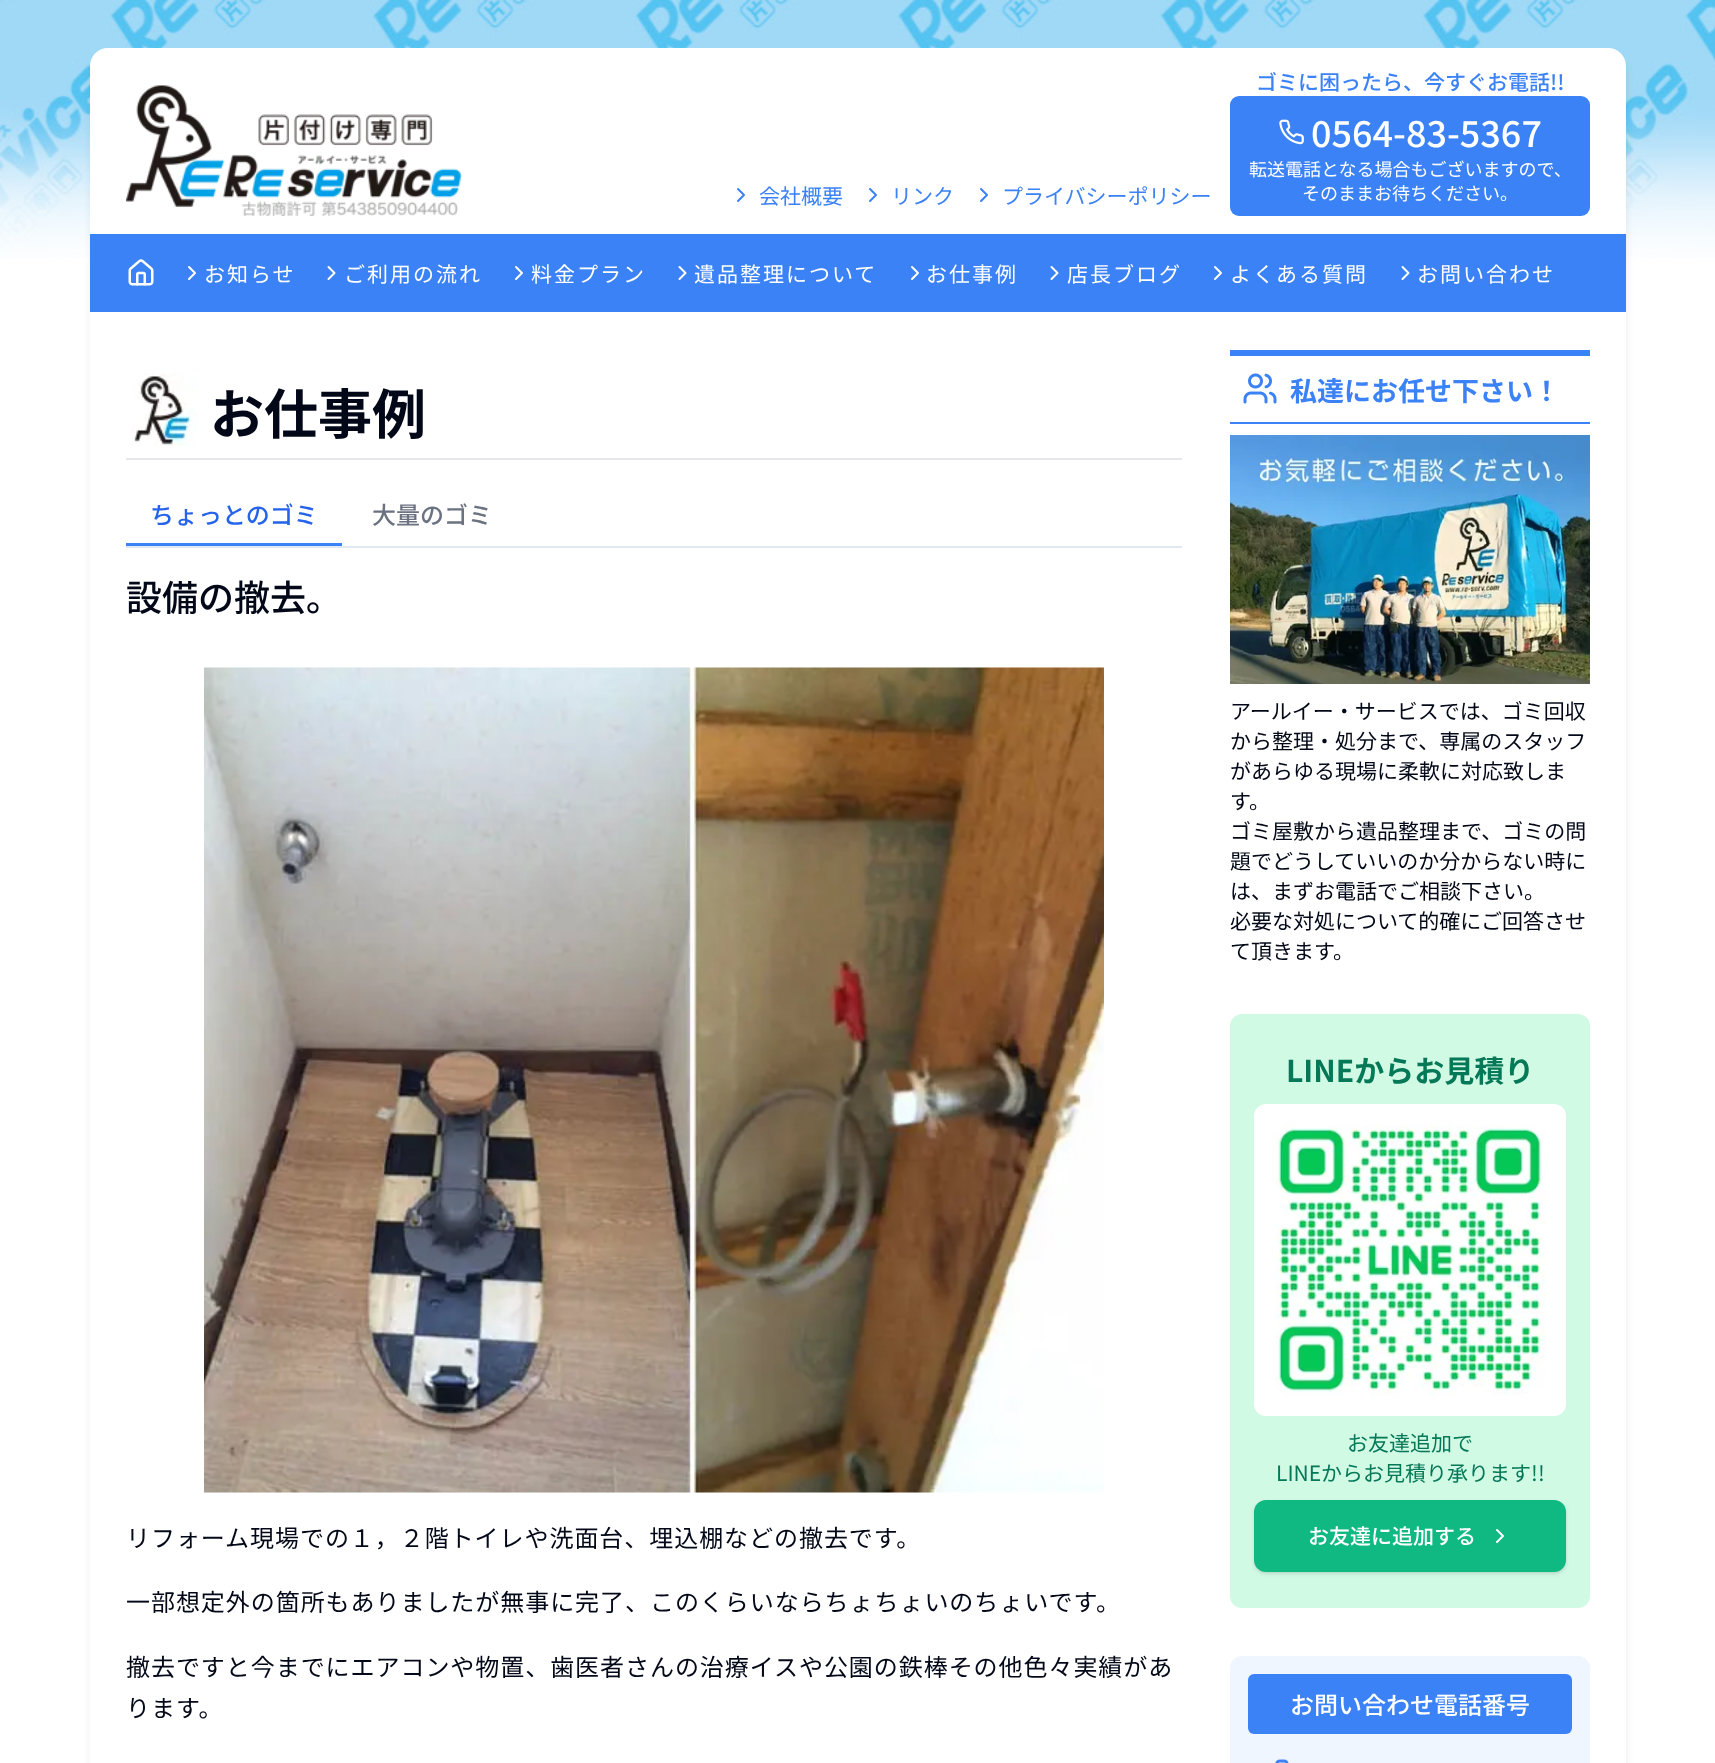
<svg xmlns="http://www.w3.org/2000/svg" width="1715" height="1763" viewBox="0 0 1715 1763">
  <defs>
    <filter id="blur1" x="-50%" y="-200%" width="200%" height="500%"><feGaussianBlur stdDeviation="4.5"/></filter>
    <filter id="blur2" x="-50%" y="-200%" width="200%" height="500%"><feGaussianBlur stdDeviation="1.5"/></filter>
    <filter id="blur3" x="-50%" y="-200%" width="200%" height="500%"><feGaussianBlur stdDeviation="2"/></filter>
  </defs>
  <rect width="100%" height="100%" fill="#ffffff"/>
  <image x="0" y="0" width="1715" height="258" href="img1.png"/>
  <rect x="92" y="56" width="1533" height="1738" rx="17" fill="#000000" fill-opacity="0.1" filter="url(#blur1)"/>
  <rect x="90" y="48" width="1536" height="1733" rx="18" fill="#ffffff"/>
  <image x="126" y="85" width="336" height="131" href="img2.png"/>
  <path d="M738 201L744 195L738 189" fill="none" stroke="#3b82f6" stroke-width="2" stroke-linecap="round" stroke-linejoin="round"/>
  <text x="759" y="204" font-family="Noto Sans JP" font-size="21" fill="#3b82f6">会社概要</text>
  <path d="M870 201L876 195L870 189" fill="none" stroke="#3b82f6" stroke-width="2" stroke-linecap="round" stroke-linejoin="round"/>
  <text x="891" y="204" font-family="Noto Sans JP" font-size="21" fill="#3b82f6">リンク</text>
  <path d="M981 201L987 195L981 189" fill="none" stroke="#3b82f6" stroke-width="2" stroke-linecap="round" stroke-linejoin="round"/>
  <text x="1002" y="204" font-family="Noto Sans JP" font-size="21" fill="#3b82f6">プライバシーポリシー</text>
  <text x="1256" y="90" font-family="Noto Sans JP" font-size="21" font-weight="500" fill="#3b82f6">ゴミに困ったら、今すぐお電話!!</text>
  <rect x="1230" y="96" width="360" height="120" rx="9" fill="#3b82f6"/>
  <image x="1279" y="119" width="25" height="26" href="img3.png"/>
  <text x="1311" y="147" font-family="Noto Sans JP" font-size="36" font-weight="500" fill="#ffffff">0564-83-5367</text>
  <text x="1249" y="176" font-family="Noto Sans JP" font-size="18" fill="#ffffff">転送電話となる場合もございますので、</text>
  <text x="1302" y="200" font-family="Noto Sans JP" font-size="18" fill="#ffffff">そのままお待ちください。</text>
  <rect x="90" y="234" width="1536" height="78" fill="#3b82f6"/>
  <image x="128" y="259" width="26" height="27" href="img4.png"/>
  <path d="M189 279L195 273L189 267" fill="none" stroke="#ffffff" stroke-width="2" stroke-linecap="round" stroke-linejoin="round"/>
  <text x="204" y="282" font-family="Noto Sans JP" font-size="21" letter-spacing="2" fill="#ffffff">お知らせ</text>
  <path d="M328.5 279L334.5 273L328.5 267" fill="none" stroke="#ffffff" stroke-width="2" stroke-linecap="round" stroke-linejoin="round"/>
  <text x="344" y="282" font-family="Noto Sans JP" font-size="21" letter-spacing="2" fill="#ffffff">ご利用の流れ</text>
  <path d="M516 279L522 273L516 267" fill="none" stroke="#ffffff" stroke-width="2" stroke-linecap="round" stroke-linejoin="round"/>
  <text x="531" y="282" font-family="Noto Sans JP" font-size="21" letter-spacing="2" fill="#ffffff">料金プラン</text>
  <path d="M679.5 279L685.5 273L679.5 267" fill="none" stroke="#ffffff" stroke-width="2" stroke-linecap="round" stroke-linejoin="round"/>
  <text x="694" y="282" font-family="Noto Sans JP" font-size="21" letter-spacing="2" fill="#ffffff">遺品整理について</text>
  <path d="M912 279L918 273L912 267" fill="none" stroke="#ffffff" stroke-width="2" stroke-linecap="round" stroke-linejoin="round"/>
  <text x="926" y="282" font-family="Noto Sans JP" font-size="21" letter-spacing="2" fill="#ffffff">お仕事例</text>
  <path d="M1051.5 279L1057.5 273L1051.5 267" fill="none" stroke="#ffffff" stroke-width="2" stroke-linecap="round" stroke-linejoin="round"/>
  <text x="1067" y="282" font-family="Noto Sans JP" font-size="21" letter-spacing="2" fill="#ffffff">店長ブログ</text>
  <path d="M1215 279L1221 273L1215 267" fill="none" stroke="#ffffff" stroke-width="2" stroke-linecap="round" stroke-linejoin="round"/>
  <text x="1230" y="282" font-family="Noto Sans JP" font-size="21" letter-spacing="2" fill="#ffffff">よくある質問</text>
  <path d="M1402.5 279L1408.5 273L1402.5 267" fill="none" stroke="#ffffff" stroke-width="2" stroke-linecap="round" stroke-linejoin="round"/>
  <text x="1417" y="282" font-family="Noto Sans JP" font-size="21" letter-spacing="2" fill="#ffffff">お問い合わせ</text>
  <rect x="126" y="458" width="1056" height="2" fill="#e5e7eb"/>
  <image x="132" y="373" width="66" height="73" href="img5.png"/>
  <text x="210" y="434" font-family="Noto Sans JP" font-size="54" font-weight="bold" fill="#020817">お仕事例</text>
  <rect x="126" y="546" width="1056" height="2" fill="#e2e8f0"/>
  <rect x="126" y="543" width="216" height="3" fill="#3b82f6"/>
  <text x="150" y="524" font-family="Noto Sans JP" font-size="24" font-weight="500" fill="#2563eb">ちょっとのゴミ</text>
  <text x="372" y="524" font-family="Noto Sans JP" font-size="24" font-weight="500" fill="#6b7280">大量のゴミ</text>
  <text x="126" y="611" font-family="Noto Sans JP" font-size="36" font-weight="500" fill="#020817">設備の撤去。</text>
  <image x="204" y="667" width="900" height="826" href="img6.png"/>
  <text x="126" y="1547" font-family="Noto Sans JP" font-size="24" letter-spacing="0.95" fill="#020817">リフォーム現場での１，２階トイレや洗面台、埋込棚などの撤去です。</text>
  <text x="126" y="1611" font-family="Noto Sans JP" font-size="24" letter-spacing="0.95" fill="#020817">一部想定外の箇所もありましたが無事に完了、このくらいならちょちょいのちょいです。</text>
  <text x="126" y="1676" font-family="Noto Sans JP" font-size="24" letter-spacing="0.95" fill="#020817">撤去ですと今までにエアコンや物置、歯医者さんの治療イスや公園の鉄棒その他色々実績があ</text>
  <text x="126" y="1717" font-family="Noto Sans JP" font-size="24" letter-spacing="0.95" fill="#020817">ります。</text>
  <rect x="1230" y="350" width="360" height="6" fill="#3b82f6"/>
  <rect x="1230" y="422" width="360" height="2" fill="#3b82f6"/>
  <image x="1243" y="373" width="34" height="31" href="img7.png"/>
  <text x="1290" y="401" font-family="Noto Sans JP" font-size="27" font-weight="bold" fill="#3b82f6">私達にお任せ下さい！</text>
  <image x="1230" y="435" width="360" height="249" href="img8.png"/>
  <text x="1230" y="719" font-family="Noto Sans JP" font-size="21" fill="#020817">アールイー・サービスでは、ゴミ回収</text>
  <text x="1230" y="749" font-family="Noto Sans JP" font-size="21" fill="#020817">から整理・処分まで、専属のスタッフ</text>
  <text x="1230" y="779" font-family="Noto Sans JP" font-size="21" fill="#020817">があらゆる現場に柔軟に対応致しま</text>
  <text x="1230" y="809" font-family="Noto Sans JP" font-size="21" fill="#020817">す。</text>
  <text x="1230" y="839" font-family="Noto Sans JP" font-size="21" fill="#020817">ゴミ屋敷から遺品整理まで、ゴミの問</text>
  <text x="1230" y="869" font-family="Noto Sans JP" font-size="21" fill="#020817">題でどうしていいのか分からない時に</text>
  <text x="1230" y="899" font-family="Noto Sans JP" font-size="21" fill="#020817">は、まずお電話でご相談下さい。</text>
  <text x="1230" y="929" font-family="Noto Sans JP" font-size="21" fill="#020817">必要な対処について的確にご回答させ</text>
  <text x="1230" y="959" font-family="Noto Sans JP" font-size="21" fill="#020817">て頂きます。</text>
  <rect x="1230" y="1014" width="360" height="594" rx="12" fill="#d1fae5"/>
  <text x="1286" y="1082" font-family="Noto Sans JP" font-size="30" font-weight="bold" fill="#047857">LINEからお見積り</text>
  <rect x="1254" y="1104" width="312" height="312" rx="12" fill="#ffffff"/>
  <image x="1275" y="1125" width="271" height="270" href="img9.png"/>
  <text x="1347" y="1451" font-family="Noto Sans JP" font-size="21" fill="#047857">お友達追加で</text>
  <text x="1276" y="1481" font-family="Noto Sans JP" font-size="21" fill="#047857">LINEからお見積り承ります!!</text>
  <rect x="1256" y="1503" width="309" height="69" rx="11" fill="#000000" fill-opacity="0.1" filter="url(#blur2)"/>
  <rect x="1254" y="1502" width="312" height="72" rx="12" fill="#000000" fill-opacity="0.1" filter="url(#blur3)"/>
  <rect x="1254" y="1500" width="312" height="72" rx="12" fill="#10b981"/>
  <text x="1308" y="1544" font-family="Noto Sans JP" font-size="21" font-weight="500" fill="#ffffff">お友達に追加する</text>
  <path d="M1497 1542L1503 1536L1497 1530" fill="none" stroke="#ffffff" stroke-width="2" stroke-linecap="round" stroke-linejoin="round"/>
  <rect x="1230" y="1656" width="360" height="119" rx="12" fill="#eff6ff"/>
  <rect x="1248" y="1674" width="324" height="60" rx="6" fill="#3b82f6"/>
  <text x="1290" y="1714" font-family="Noto Sans JP" font-size="24" font-weight="500" fill="#ffffff">お問い合わせ電話番号</text>
  <image x="1275" y="1759" width="14" height="4" href="img10.png"/>
</svg>
